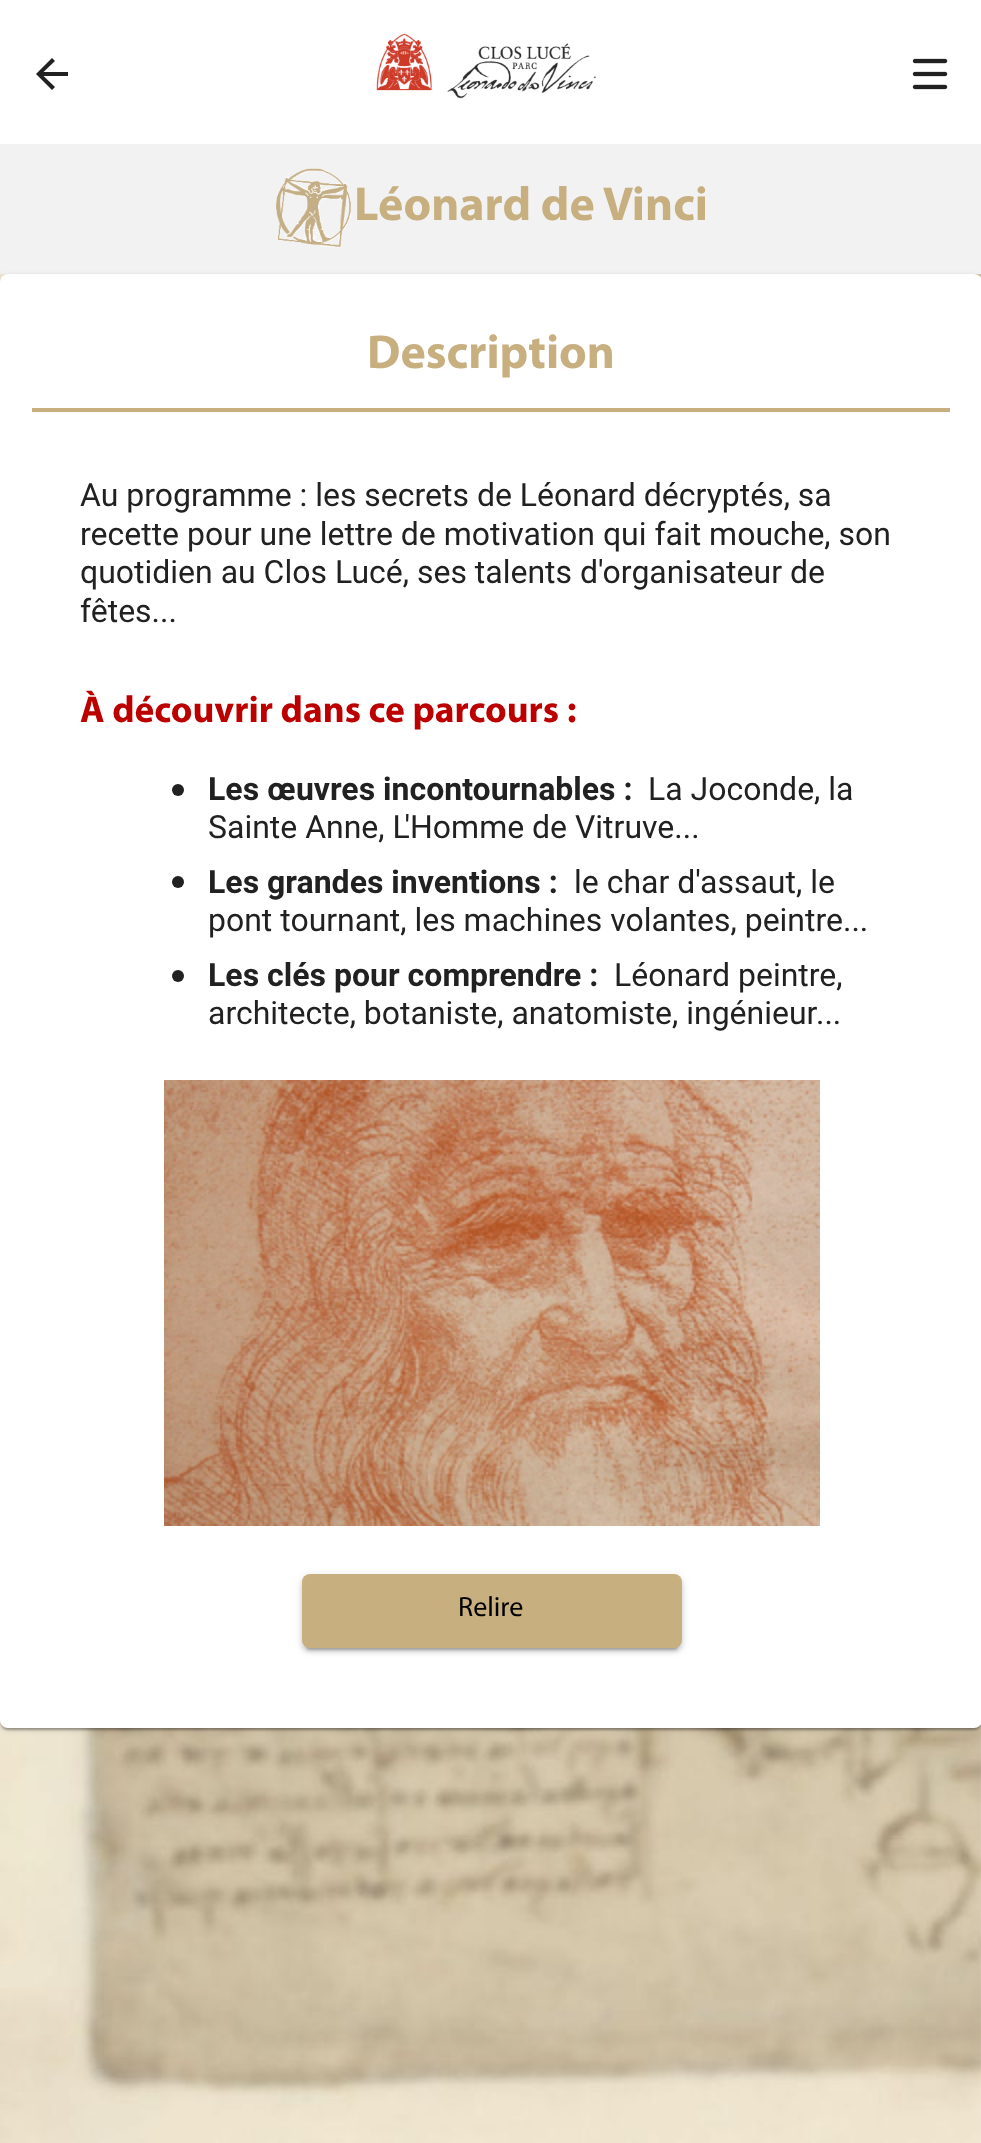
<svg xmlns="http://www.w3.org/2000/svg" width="981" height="2143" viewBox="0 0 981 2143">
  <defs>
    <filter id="blur1" x="-50%" y="-200%" width="200%" height="500%"><feGaussianBlur stdDeviation="3"/></filter>
    <filter id="blur2" x="-50%" y="-200%" width="200%" height="500%"><feGaussianBlur stdDeviation="1"/></filter>
    <filter id="blur3" x="-50%" y="-200%" width="200%" height="500%"><feGaussianBlur stdDeviation="5"/></filter>
    <filter id="blur4" x="-50%" y="-200%" width="200%" height="500%"><feGaussianBlur stdDeviation="2"/></filter>
  </defs>
  <rect width="100%" height="100%" fill="#ffffff"/>
  <image x="0" y="274" width="981" height="1869" href="img1.png"/>
  <path d="M68 72V76H43.5L55 87L52 90L36 74L52 58L55 61L43.5 72Z" fill="#212121"/>
  <image x="376" y="34" width="220" height="65" href="img2.png"/>
  <image x="912" y="58" width="36" height="32" href="img3.png"/>
  <rect x="0" y="144" width="981" height="130" fill="#f2f2f2"/>
  <image x="276" y="168" width="75" height="80" href="img4.png"/>
  <text x="354" y="220" font-family="Myriad" font-size="48" font-weight="bold" fill="#c7af80">Léonard de Vinci</text>
  <rect x="0" y="276" width="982" height="1454" rx="8" fill="#000000" fill-opacity="0.12" filter="url(#blur1)"/>
  <rect x="0" y="276" width="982" height="1454" rx="8" fill="#000000" fill-opacity="0.14" filter="url(#blur2)"/>
  <rect x="2" y="280" width="978" height="1450" rx="6" fill="#000000" fill-opacity="0.2" filter="url(#blur2)"/>
  <rect x="0" y="274" width="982" height="1454" rx="8" fill="#ffffff"/>
  <rect x="32" y="408" width="918" height="4" fill="#c7af80"/>
  <text x="367" y="368" font-family="Myriad" font-size="48" font-weight="bold" fill="#c7af80">Description</text>
  <text x="80" y="506" font-family="Roboto" font-size="32" fill="#212121">Au programme : les secrets de Léonard décryptés, sa</text>
  <text x="80" y="545" font-family="Roboto" font-size="32" fill="#212121">recette pour une lettre de motivation qui fait mouche, son</text>
  <text x="80" y="583" font-family="Roboto" font-size="32" fill="#212121">quotidien au Clos Lucé, ses talents d'organisateur de</text>
  <text x="80" y="622" font-family="Roboto" font-size="32" fill="#212121">fêtes...</text>
  <text x="80" y="722" font-family="Myriad" font-size="37.5" font-weight="bold" fill="#bc0000">À découvrir dans ce parcours :</text>
  <circle cx="178" cy="790" r="6" fill="#212121"/>
  <text x="208" y="800" font-family="Roboto" font-size="32" font-weight="bold" fill="#212121">Les œuvres incontournables :</text>
  <text x="648" y="800" font-family="Roboto" font-size="32" fill="#212121">La Joconde, la</text>
  <text x="208" y="838" font-family="Roboto" font-size="32" fill="#212121">Sainte Anne, L'Homme de Vitruve...</text>
  <circle cx="178" cy="882" r="6" fill="#212121"/>
  <text x="208" y="893" font-family="Roboto" font-size="32" font-weight="bold" fill="#212121">Les grandes inventions :</text>
  <text x="574" y="893" font-family="Roboto" font-size="32" fill="#212121">le char d'assaut, le</text>
  <text x="208" y="931" font-family="Roboto" font-size="32" fill="#212121">pont tournant, les machines volantes, peintre...</text>
  <circle cx="178" cy="976" r="6" fill="#212121"/>
  <text x="208" y="986" font-family="Roboto" font-size="32" font-weight="bold" fill="#212121">Les clés pour comprendre :</text>
  <text x="614" y="986" font-family="Roboto" font-size="32" fill="#212121">Léonard peintre,</text>
  <text x="208" y="1024" font-family="Roboto" font-size="32" fill="#212121">architecte, botaniste, anatomiste, ingénieur</text>
  <text x="816" y="1024" font-family="Roboto" font-size="32" fill="#212121">...</text>
  <image x="164" y="1080" width="656" height="446" href="img5.png"/>
  <rect x="302" y="1576" width="380" height="74" rx="8" fill="#000000" fill-opacity="0.12" filter="url(#blur3)"/>
  <rect x="302" y="1578" width="380" height="74" rx="8" fill="#000000" fill-opacity="0.14" filter="url(#blur4)"/>
  <rect x="306" y="1584" width="372" height="66" rx="4" fill="#000000" fill-opacity="0.2" filter="url(#blur2)"/>
  <rect x="302" y="1574" width="380" height="74" rx="8" fill="#c7af80"/>
  <text x="458" y="1616" font-family="Myriad" font-size="28" fill="#000000">Relire</text>
</svg>
